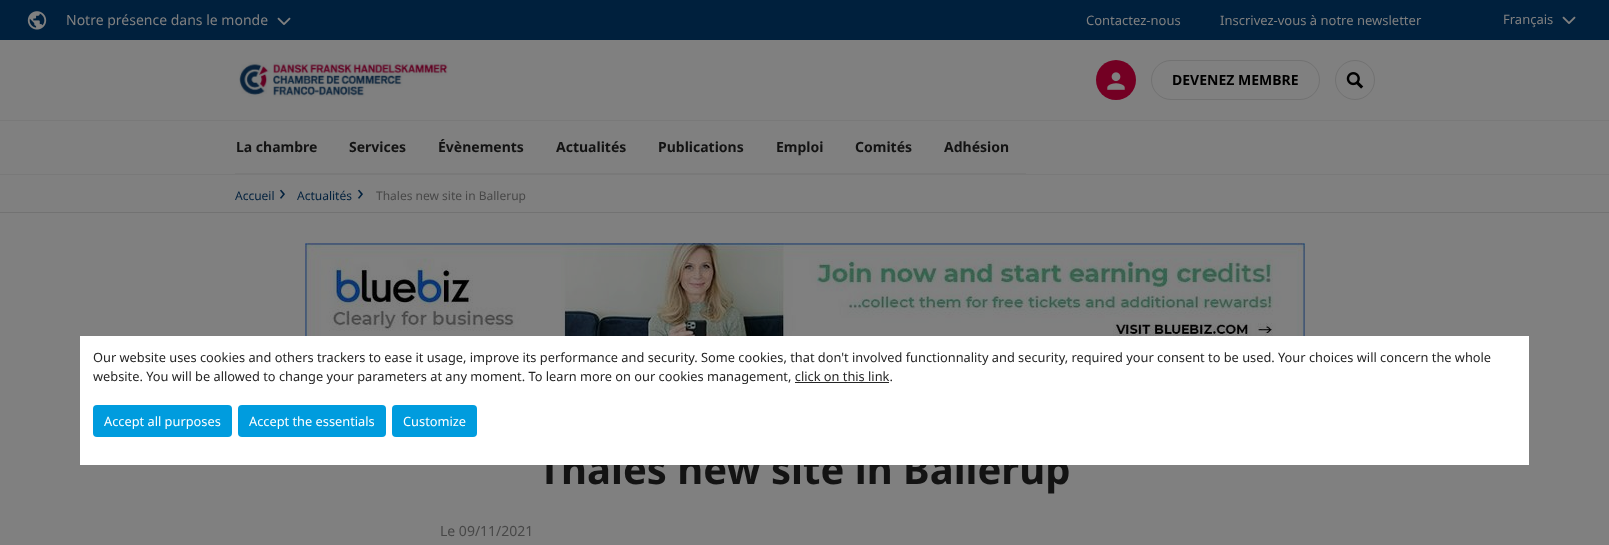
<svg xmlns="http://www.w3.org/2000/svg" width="1609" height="545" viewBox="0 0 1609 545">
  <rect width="100%" height="100%" fill="#808080"/>
  <rect x="0" y="174" width="1609" height="1" fill="#797979"/>
  <rect x="0" y="0" width="1609" height="40" fill="#00203d"/>
  <image x="27" y="11" width="20" height="19" href="img1.png"/>
  <text x="66" y="25" font-family="Noto Sans" font-size="14" fill="#808080">Notre présence dans le monde</text>
  <image x="277" y="17" width="14" height="8" href="img2.png"/>
  <text x="1086" y="25" font-family="Noto Sans" font-size="13" fill="#808080">Contactez-nous</text>
  <text x="1220" y="25" font-family="Noto Sans" font-size="13" fill="#808080">Inscrivez-vous à notre newsletter</text>
  <text x="1503" y="24" font-family="Noto Sans" font-size="13" fill="#808080">Français</text>
  <image x="1562" y="16" width="14" height="8" href="img2.png"/>
  <rect x="0" y="120" width="1609" height="1" fill="#797979"/>
  <image x="239" y="62" width="209" height="35" href="img3.png"/>
  <circle cx="1116" cy="80" r="20" fill="#730023"/>
  <image x="1107" y="72" width="18" height="18" href="img4.png"/>
  <rect x="1151.5" y="60.5" width="168" height="39" rx="19.5" fill="none" stroke="#727272"/>
  <text x="1172" y="85" font-family="Noto Sans" font-size="14" font-weight="bold" fill="#000000">DEVENEZ MEMBRE</text>
  <circle cx="1355" cy="80" r="19.5" fill="none" stroke="#727272"/>
  <image x="1346" y="72" width="18" height="17" href="img5.png"/>
  <rect x="235" y="173" width="791" height="1" fill="#797979"/>
  <text x="236" y="152" font-family="Noto Sans" font-size="14" font-weight="bold" fill="#131313">La chambre</text>
  <text x="349" y="152" font-family="Noto Sans" font-size="14" font-weight="bold" fill="#131313">Services</text>
  <text x="438" y="152" font-family="Noto Sans" font-size="14" font-weight="bold" fill="#131313">Évènements</text>
  <text x="556" y="152" font-family="Noto Sans" font-size="14" font-weight="bold" fill="#131313">Actualités</text>
  <text x="658" y="152" font-family="Noto Sans" font-size="14" font-weight="bold" fill="#131313">Publications</text>
  <text x="776" y="152" font-family="Noto Sans" font-size="14" font-weight="bold" fill="#131313">Emploi</text>
  <text x="855" y="152" font-family="Noto Sans" font-size="14" font-weight="bold" fill="#131313">Comités</text>
  <text x="944" y="152" font-family="Noto Sans" font-size="14" font-weight="bold" fill="#131313">Adhésion</text>
  <rect x="0" y="212" width="1609" height="1" fill="#727272"/>
  <text x="235" y="200" font-family="Noto Sans" font-size="12" fill="#00203d">Accueil</text>
  <text x="279" y="200" font-family="Noto Sans" font-size="22" fill="#00203d">›</text>
  <text x="297" y="200" font-family="Noto Sans" font-size="12" fill="#00203d">Actualités</text>
  <text x="357" y="200" font-family="Noto Sans" font-size="22" fill="#00203d">›</text>
  <text x="376" y="200" font-family="Noto Sans" font-size="12" fill="#474747">Thales new site in Ballerup</text>
  <image x="305" y="243" width="1000" height="93" href="img6.png"/>
  <text x="538" y="484" font-family="Noto Sans" font-size="40" font-weight="bold" fill="#131313">Thales new site in Ballerup</text>
  <text x="440" y="536" font-family="Noto Sans" font-size="14" fill="#474747">Le 09/11/2021</text>
  <rect x="80" y="336" width="1449" height="129" fill="#ffffff"/>
  <text x="93" y="362" font-family="Noto Sans" font-size="12.8" fill="#252525">Our website uses cookies and others trackers to ease it usage, improve its performance and security. Some cookies, that don't involved functionnality and security, required your consent to be used. Your choices will concern the whole</text>
  <text x="93" y="381" font-family="Noto Sans" font-size="12.8" fill="#252525">website. You will be allowed to change your parameters at any moment. To learn more on our cookies management, click on this link.</text>
  <rect x="795" y="382" width="94" height="1" fill="#252525"/>
  <rect x="93" y="405" width="139" height="32" rx="4" fill="#009cde"/>
  <text x="104" y="426" font-family="Noto Sans" font-size="12.8" fill="#ffffff">Accept all purposes</text>
  <rect x="238" y="405" width="148" height="32" rx="4" fill="#009cde"/>
  <text x="249" y="426" font-family="Noto Sans" font-size="12.8" fill="#ffffff">Accept the essentials</text>
  <rect x="392" y="405" width="85" height="32" rx="4" fill="#009cde"/>
  <text x="403" y="426" font-family="Noto Sans" font-size="12.8" fill="#ffffff">Customize</text>
</svg>
